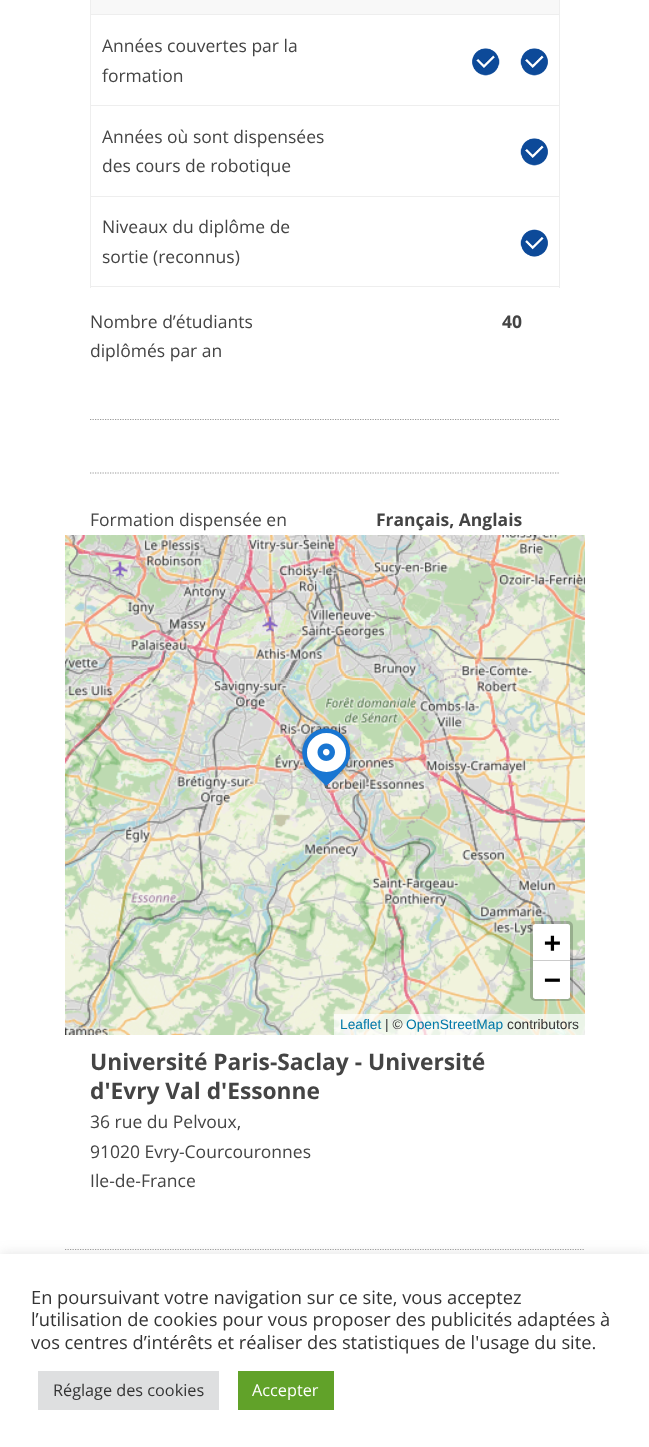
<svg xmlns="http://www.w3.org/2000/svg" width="649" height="1447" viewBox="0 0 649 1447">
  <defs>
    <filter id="blur1" x="-50%" y="-200%" width="200%" height="500%"><feGaussianBlur stdDeviation="3"/></filter>
    <filter id="blur2" x="-50%" y="-200%" width="200%" height="500%"><feGaussianBlur stdDeviation="6"/></filter>
  </defs>
  <rect width="100%" height="100%" fill="#ffffff"/>
  <rect x="559" y="0" width="1" height="288" fill="#eeeeee"/>
  <rect x="90" y="286" width="470" height="1" fill="#eeeeee"/>
  <rect x="90" y="0" width="1" height="288" fill="#eeeeee"/>
  <rect x="91" y="0" width="468" height="14" fill="#f8f8f8"/>
  <rect x="90" y="14" width="470" height="1" fill="#eeeeee"/>
  <image x="520" y="48" width="28" height="28" href="img1.png"/>
  <text x="102" y="52" font-family="Open Sans" font-size="17.5" fill="#444444">Années couvertes par la</text>
  <text x="102" y="82" font-family="Open Sans" font-size="17.5" fill="#444444">formation</text>
  <image x="472" y="48" width="28" height="28" href="img2.png"/>
  <rect x="90" y="105" width="470" height="1" fill="#eeeeee"/>
  <image x="520" y="138" width="28" height="28" href="img1.png"/>
  <text x="102" y="143" font-family="Open Sans" font-size="17.5" fill="#444444">Années où sont dispensées</text>
  <text x="102" y="172" font-family="Open Sans" font-size="17.5" fill="#444444">des cours de robotique</text>
  <rect x="90" y="196" width="470" height="1" fill="#eeeeee"/>
  <image x="520" y="229" width="28" height="28" href="img3.png"/>
  <text x="102" y="233" font-family="Open Sans" font-size="17.5" fill="#444444">Niveaux du diplôme de</text>
  <text x="102" y="263" font-family="Open Sans" font-size="17.5" fill="#444444">sortie (reconnus)</text>
  <text x="90" y="328" font-family="Open Sans" font-size="17.5" fill="#444444">Nombre d’étudiants</text>
  <text x="90" y="357" font-family="Open Sans" font-size="17.5" fill="#444444">diplômés par an</text>
  <text x="502" y="328" font-family="Open Sans" font-size="17.5" font-weight="bold" fill="#444444">40</text>
  <path d="M90 419.5H560" fill="none" stroke="#999999" stroke-width="1.2" stroke-dasharray="1.25 1.25"/>
  <path d="M90 473H560" fill="none" stroke="#999999" stroke-width="1.2" stroke-dasharray="1.25 1.25"/>
  <text x="90" y="526" font-family="Open Sans" font-size="17.5" fill="#444444">Formation dispensée en</text>
  <text x="376" y="526" font-family="Open Sans" font-size="17.5" font-weight="bold" fill="#444444">Français, Anglais</text>
  <image x="65" y="535" width="290" height="143" href="img4.png"/>
  <image x="355" y="535" width="230" height="143" href="img5.png"/>
  <image x="65" y="678" width="290" height="320" href="img6.png"/>
  <image x="355" y="678" width="230" height="320" href="img7.png"/>
  <image x="65" y="997" width="290" height="38" href="img8.png"/>
  <image x="355" y="997" width="230" height="38" href="img9.png"/>
  <rect x="325" y="785" width="3" height="3" fill="#666666"/>
  <rect x="303" y="729" width="47" height="47" rx="23.5" fill="#000000" fill-opacity="0.47" filter="url(#blur1)"/>
  <path d="M309 736C328 717 358 738 348 761C345 769 333 780 326 786L309 769C300 760 300 745 309 736Z" fill="#1976d2"/>
  <circle cx="326.5" cy="752.5" r="21.5" fill="#ffffff" stroke="#1976d2" stroke-width="4"/>
  <image x="317" y="743" width="18" height="18" href="img10.png"/>
  <rect x="531.5" y="922.5" width="40" height="77" rx="3.5" fill="none" stroke="#000000" stroke-opacity="0.2" stroke-width="3"/>
  <path d="M535.5 924H567.5C569 924 570 925 570 926.5V961H533V926.5C533 925 534 924 535.5 924Z" fill="#ffffff"/>
  <rect x="533" y="960" width="37" height="1" fill="#cccccc"/>
  <text x="544" y="952" font-family="DejaVu Sans Mono" font-size="28" font-weight="bold" fill="#000000">+</text>
  <path d="M533 961H570V996.5C570 998 569 999 567.5 999H535.5C534 999 533 998 533 996.5Z" fill="#ffffff"/>
  <text x="544" y="989" font-family="DejaVu Sans Mono" font-size="28" font-weight="bold" fill="#000000">−</text>
  <rect x="334" y="1014" width="251" height="21" fill="#ffffff" fill-opacity="0.7"/>
  <text x="340" y="1029" font-family="Liberation Sans" font-size="13.75" fill="#0078a8">Leaflet</text>
  <text x="385" y="1029" font-family="Liberation Sans" font-size="13.75" fill="#333333">| ©</text>
  <text x="406" y="1029" font-family="Liberation Sans" font-size="13.75" fill="#0078a8">OpenStreetMap</text>
  <text x="507" y="1029" font-family="Liberation Sans" font-size="13.75" fill="#333333">contributors</text>
  <text x="90" y="1070" font-family="Open Sans" font-size="22.75" font-weight="bold" fill="#444444">Université Paris-Saclay - Université</text>
  <text x="90" y="1099" font-family="Open Sans" font-size="22.75" font-weight="bold" fill="#444444">d'Evry Val d'Essonne</text>
  <text x="90" y="1128" font-family="Open Sans" font-size="17.5" fill="#444444">36 rue du Pelvoux,</text>
  <text x="90" y="1158" font-family="Open Sans" font-size="17.5" fill="#444444">91020 Evry-Courcouronnes</text>
  <text x="90" y="1187" font-family="Open Sans" font-size="17.5" fill="#444444">Ile-de-France</text>
  <path d="M65 1249.5H585" fill="none" stroke="#999999" stroke-width="1.2" stroke-dasharray="1.25 1.25"/>
  <rect x="0" y="1253" width="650" height="193" fill="#acabab" fill-opacity="0.3" filter="url(#blur2)"/>
  <rect x="0" y="1254" width="649" height="193" fill="#ffffff"/>
  <text x="31" y="1304" font-family="Open Sans" font-size="18.3" fill="#333333">En poursuivant votre navigation sur ce site, vous acceptez</text>
  <text x="31" y="1326" font-family="Open Sans" font-size="18.3" fill="#333333">l’utilisation de cookies pour vous proposer des publicités adaptées à</text>
  <text x="31" y="1349" font-family="Open Sans" font-size="18.3" fill="#333333">vos centres d’intérêts et réaliser des statistiques de l'usage du site.</text>
  <rect x="38" y="1371" width="181" height="39" fill="#dedfe0"/>
  <text x="53" y="1396" font-family="Open Sans" font-size="16.25" fill="#333333">Réglage des cookies</text>
  <rect x="238" y="1371" width="96" height="39" fill="#61a229"/>
  <text x="252" y="1396" font-family="Open Sans" font-size="16.25" fill="#ffffff">Accepter</text>
</svg>
